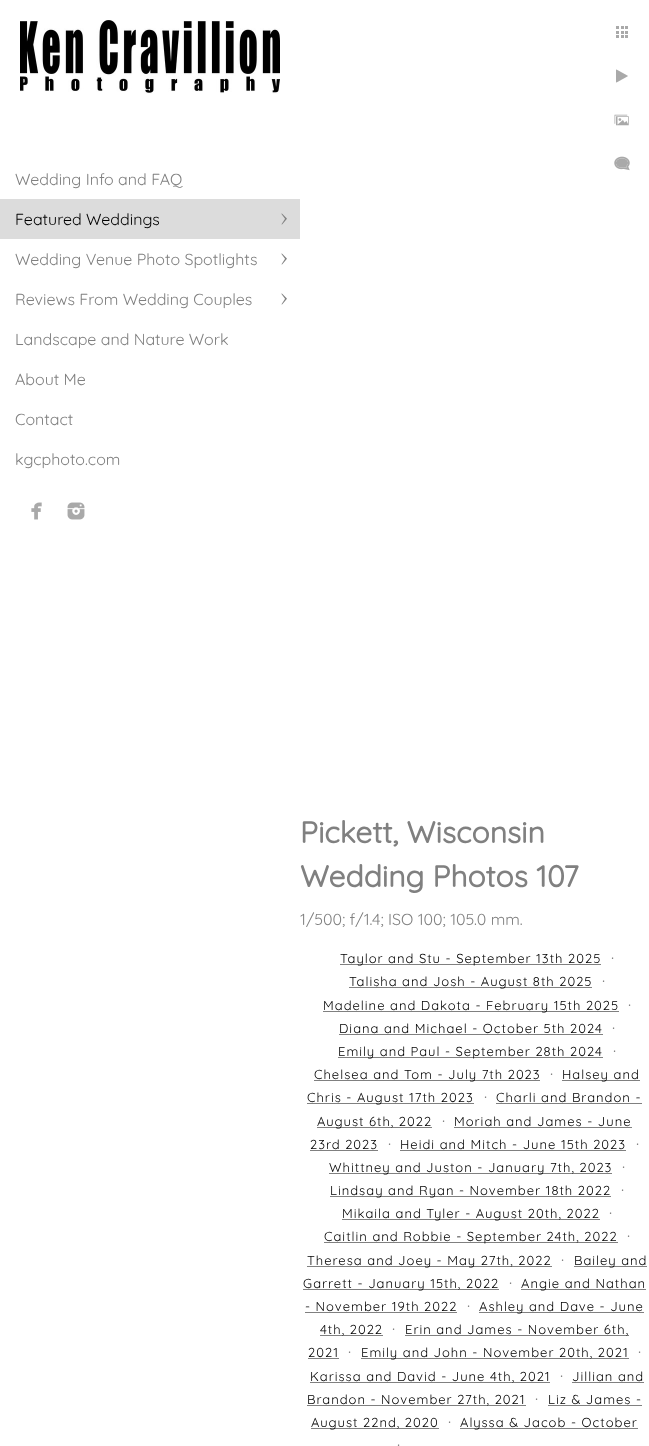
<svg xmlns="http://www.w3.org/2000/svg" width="649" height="1446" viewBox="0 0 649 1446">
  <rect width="100%" height="100%" fill="#ffffff"/>
  <image x="616" y="26" width="12" height="12" href="img1.png"/>
  <image x="616" y="69" width="12" height="14" href="img2.png"/>
  <image x="614" y="114" width="15" height="12" href="img3.png"/>
  <image x="614" y="156" width="16" height="15" href="img4.png"/>
  <image x="20" y="20" width="260" height="74" href="img5.png"/>
  <text x="15" y="185" font-family="Quicksand" font-size="16" font-weight="300" fill="#808080">Wedding Info and FAQ</text>
  <rect x="0" y="199" width="300" height="40" fill="#dcdcdc"/>
  <text x="15" y="225" font-family="Quicksand" font-size="16" font-weight="300" fill="#000000">Featured Weddings</text>
  <image x="281" y="213" width="6" height="12" href="img6.png"/>
  <text x="15" y="265" font-family="Quicksand" font-size="16" font-weight="300" fill="#808080">Wedding Venue Photo Spotlights</text>
  <image x="281" y="253" width="6" height="12" href="img7.png"/>
  <text x="15" y="305" font-family="Quicksand" font-size="16" font-weight="300" fill="#808080">Reviews From Wedding Couples</text>
  <image x="281" y="293" width="6" height="12" href="img7.png"/>
  <text x="15" y="345" font-family="Quicksand" font-size="16" font-weight="300" fill="#808080">Landscape and Nature Work</text>
  <text x="15" y="385" font-family="Quicksand" font-size="16" font-weight="300" fill="#808080">About Me</text>
  <text x="15" y="425" font-family="Quicksand" font-size="16" font-weight="300" fill="#808080">Contact</text>
  <text x="15" y="465" font-family="Quicksand" font-size="16" font-weight="300" fill="#808080">kgcphoto.com</text>
  <image x="31" y="502" width="11" height="18" href="img8.png"/>
  <image x="67" y="502" width="18" height="18" href="img9.png"/>
  <text x="300" y="843" font-family="Quicksand" font-size="30" font-weight="bold" fill="#808080">Pickett, Wisconsin</text>
  <text x="300" y="887" font-family="Quicksand" font-size="30" font-weight="bold" fill="#808080">Wedding Photos 107</text>
  <text x="300" y="925" font-family="Quicksand" font-size="16" font-weight="300" fill="#808080">1/500; f/1.4; ISO 100; 105.0 mm.</text>
  <rect x="340" y="964" width="261" height="1" fill="#808080"/>
  <text x="340" y="963" font-family="Quicksand" font-size="13" font-weight="300" letter-spacing="1" fill="#000000">Taylor and Stu - September 13th 2025</text>
  <text x="611" y="963" font-family="Quicksand" font-size="16" font-weight="300" fill="#808080">·</text>
  <rect x="349" y="987" width="243" height="1" fill="#808080"/>
  <text x="349" y="986" font-family="Quicksand" font-size="13" font-weight="300" letter-spacing="1" fill="#000000">Talisha and Josh - August 8th 2025</text>
  <text x="602" y="986" font-family="Quicksand" font-size="16" font-weight="300" fill="#808080">·</text>
  <rect x="323" y="1011" width="296" height="1" fill="#808080"/>
  <text x="323" y="1010" font-family="Quicksand" font-size="13" font-weight="300" letter-spacing="1" fill="#000000">Madeline and Dakota - February 15th 2025</text>
  <text x="628" y="1010" font-family="Quicksand" font-size="16" font-weight="300" fill="#808080">·</text>
  <text x="339" y="1033" font-family="Quicksand" font-size="13" font-weight="300" letter-spacing="1" fill="#000000">Diana and Michael - October 5th 2024</text>
  <rect x="339" y="1034" width="264" height="1" fill="#808080"/>
  <text x="612" y="1033" font-family="Quicksand" font-size="16" font-weight="300" fill="#808080">·</text>
  <rect x="338" y="1057" width="265" height="1" fill="#808080"/>
  <text x="338" y="1056" font-family="Quicksand" font-size="13" font-weight="300" letter-spacing="1" fill="#000000">Emily and Paul - September 28th 2024</text>
  <text x="613" y="1056" font-family="Quicksand" font-size="16" font-weight="300" fill="#808080">·</text>
  <rect x="314" y="1080" width="226" height="1" fill="#808080"/>
  <text x="314" y="1079" font-family="Quicksand" font-size="13" font-weight="300" letter-spacing="1" fill="#000000">Chelsea and Tom - July 7th 2023</text>
  <text x="550" y="1079" font-family="Quicksand" font-size="16" font-weight="300" fill="#808080">·</text>
  <rect x="562" y="1080" width="78" height="1" fill="#808080"/>
  <text x="562" y="1079" font-family="Quicksand" font-size="13" font-weight="300" letter-spacing="1" fill="#000000">Halsey and</text>
  <rect x="307" y="1103" width="167" height="1" fill="#808080"/>
  <text x="307" y="1102" font-family="Quicksand" font-size="13" font-weight="300" letter-spacing="1" fill="#000000">Chris - August 17th 2023</text>
  <text x="484" y="1102" font-family="Quicksand" font-size="16" font-weight="300" fill="#808080">·</text>
  <text x="496" y="1102" font-family="Quicksand" font-size="13" font-weight="300" letter-spacing="1" fill="#000000">Charli and Brandon -</text>
  <rect x="496" y="1103" width="146" height="1" fill="#808080"/>
  <rect x="317" y="1127" width="115" height="1" fill="#808080"/>
  <text x="317" y="1126" font-family="Quicksand" font-size="13" font-weight="300" letter-spacing="1" fill="#000000">August 6th, 2022</text>
  <text x="442" y="1126" font-family="Quicksand" font-size="16" font-weight="300" fill="#808080">·</text>
  <text x="454" y="1126" font-family="Quicksand" font-size="13" font-weight="300" letter-spacing="1" fill="#000000">Moriah and James - June</text>
  <rect x="454" y="1127" width="178" height="1" fill="#808080"/>
  <text x="310" y="1149" font-family="Quicksand" font-size="13" font-weight="300" letter-spacing="1" fill="#000000">23rd 2023</text>
  <rect x="310" y="1150" width="68" height="1" fill="#808080"/>
  <text x="388" y="1149" font-family="Quicksand" font-size="16" font-weight="300" fill="#808080">·</text>
  <text x="400" y="1149" font-family="Quicksand" font-size="13" font-weight="300" letter-spacing="1" fill="#000000">Heidi and Mitch - June 15th 2023</text>
  <rect x="400" y="1150" width="226" height="1" fill="#808080"/>
  <text x="636" y="1149" font-family="Quicksand" font-size="16" font-weight="300" fill="#808080">·</text>
  <rect x="329" y="1173" width="283" height="1" fill="#808080"/>
  <text x="329" y="1172" font-family="Quicksand" font-size="13" font-weight="300" letter-spacing="1" fill="#000000">Whittney and Juston - January 7th, 2023</text>
  <text x="622" y="1172" font-family="Quicksand" font-size="16" font-weight="300" fill="#808080">·</text>
  <rect x="330" y="1196" width="281" height="1" fill="#808080"/>
  <text x="330" y="1195" font-family="Quicksand" font-size="13" font-weight="300" letter-spacing="1" fill="#000000">Lindsay and Ryan - November 18th 2022</text>
  <text x="621" y="1195" font-family="Quicksand" font-size="16" font-weight="300" fill="#808080">·</text>
  <rect x="342" y="1219" width="258" height="1" fill="#808080"/>
  <text x="342" y="1218" font-family="Quicksand" font-size="13" font-weight="300" letter-spacing="1" fill="#000000">Mikaila and Tyler - August 20th, 2022</text>
  <text x="609" y="1218" font-family="Quicksand" font-size="16" font-weight="300" fill="#808080">·</text>
  <rect x="324" y="1242" width="294" height="1" fill="#808080"/>
  <text x="324" y="1241" font-family="Quicksand" font-size="13" font-weight="300" letter-spacing="1" fill="#000000">Caitlin and Robbie - September 24th, 2022</text>
  <text x="627" y="1241" font-family="Quicksand" font-size="16" font-weight="300" fill="#808080">·</text>
  <rect x="307" y="1266" width="245" height="1" fill="#808080"/>
  <text x="307" y="1265" font-family="Quicksand" font-size="13" font-weight="300" letter-spacing="1" fill="#000000">Theresa and Joey - May 27th, 2022</text>
  <text x="561" y="1265" font-family="Quicksand" font-size="16" font-weight="300" fill="#808080">·</text>
  <rect x="574" y="1266" width="73" height="1" fill="#808080"/>
  <text x="574" y="1265" font-family="Quicksand" font-size="13" font-weight="300" letter-spacing="1" fill="#000000">Bailey and</text>
  <rect x="303" y="1289" width="196" height="1" fill="#808080"/>
  <text x="303" y="1288" font-family="Quicksand" font-size="13" font-weight="300" letter-spacing="1" fill="#000000">Garrett - January 15th, 2022</text>
  <text x="509" y="1288" font-family="Quicksand" font-size="16" font-weight="300" fill="#808080">·</text>
  <rect x="521" y="1289" width="125" height="1" fill="#808080"/>
  <text x="521" y="1288" font-family="Quicksand" font-size="13" font-weight="300" letter-spacing="1" fill="#000000">Angie and Nathan</text>
  <text x="305" y="1311" font-family="Quicksand" font-size="13" font-weight="300" letter-spacing="1" fill="#000000">- November 19th 2022</text>
  <rect x="305" y="1312" width="152" height="1" fill="#808080"/>
  <text x="467" y="1311" font-family="Quicksand" font-size="16" font-weight="300" fill="#808080">·</text>
  <rect x="479" y="1312" width="165" height="1" fill="#808080"/>
  <text x="479" y="1311" font-family="Quicksand" font-size="13" font-weight="300" letter-spacing="1" fill="#000000">Ashley and Dave - June</text>
  <rect x="320" y="1335" width="63" height="1" fill="#808080"/>
  <text x="320" y="1334" font-family="Quicksand" font-size="13" font-weight="300" letter-spacing="1" fill="#000000">4th, 2022</text>
  <text x="392" y="1334" font-family="Quicksand" font-size="16" font-weight="300" fill="#808080">·</text>
  <rect x="405" y="1335" width="224" height="1" fill="#808080"/>
  <text x="405" y="1334" font-family="Quicksand" font-size="13" font-weight="300" letter-spacing="1" fill="#000000">Erin and James - November 6th,</text>
  <text x="308" y="1357" font-family="Quicksand" font-size="13" font-weight="300" letter-spacing="1" fill="#000000">2021</text>
  <rect x="308" y="1358" width="31" height="1" fill="#808080"/>
  <text x="348" y="1357" font-family="Quicksand" font-size="16" font-weight="300" fill="#808080">·</text>
  <rect x="361" y="1358" width="268" height="1" fill="#808080"/>
  <text x="361" y="1357" font-family="Quicksand" font-size="13" font-weight="300" letter-spacing="1" fill="#000000">Emily and John - November 20th, 2021</text>
  <text x="638" y="1357" font-family="Quicksand" font-size="16" font-weight="300" fill="#808080">·</text>
  <rect x="310" y="1382" width="240" height="1" fill="#808080"/>
  <text x="310" y="1381" font-family="Quicksand" font-size="13" font-weight="300" letter-spacing="1" fill="#000000">Karissa and David - June 4th, 2021</text>
  <text x="560" y="1381" font-family="Quicksand" font-size="16" font-weight="300" fill="#808080">·</text>
  <text x="572" y="1381" font-family="Quicksand" font-size="13" font-weight="300" letter-spacing="1" fill="#000000">Jillian and</text>
  <rect x="572" y="1382" width="72" height="1" fill="#808080"/>
  <rect x="307" y="1405" width="219" height="1" fill="#808080"/>
  <text x="307" y="1404" font-family="Quicksand" font-size="13" font-weight="300" letter-spacing="1" fill="#000000">Brandon - November 27th, 2021</text>
  <text x="535" y="1404" font-family="Quicksand" font-size="16" font-weight="300" fill="#808080">·</text>
  <text x="548" y="1404" font-family="Quicksand" font-size="13" font-weight="300" letter-spacing="1" fill="#000000">Liz &amp; James -</text>
  <rect x="548" y="1405" width="94" height="1" fill="#808080"/>
  <rect x="311" y="1428" width="128" height="1" fill="#808080"/>
  <text x="311" y="1427" font-family="Quicksand" font-size="13" font-weight="300" letter-spacing="1" fill="#000000">August 22nd, 2020</text>
  <text x="448" y="1427" font-family="Quicksand" font-size="16" font-weight="300" fill="#808080">·</text>
  <rect x="460" y="1428" width="178" height="1" fill="#808080"/>
  <text x="460" y="1427" font-family="Quicksand" font-size="13" font-weight="300" letter-spacing="1" fill="#000000">Alyssa &amp; Jacob - October</text>
  <text x="397" y="1450" font-family="Quicksand" font-size="16" font-weight="300" fill="#808080">·</text>
</svg>
